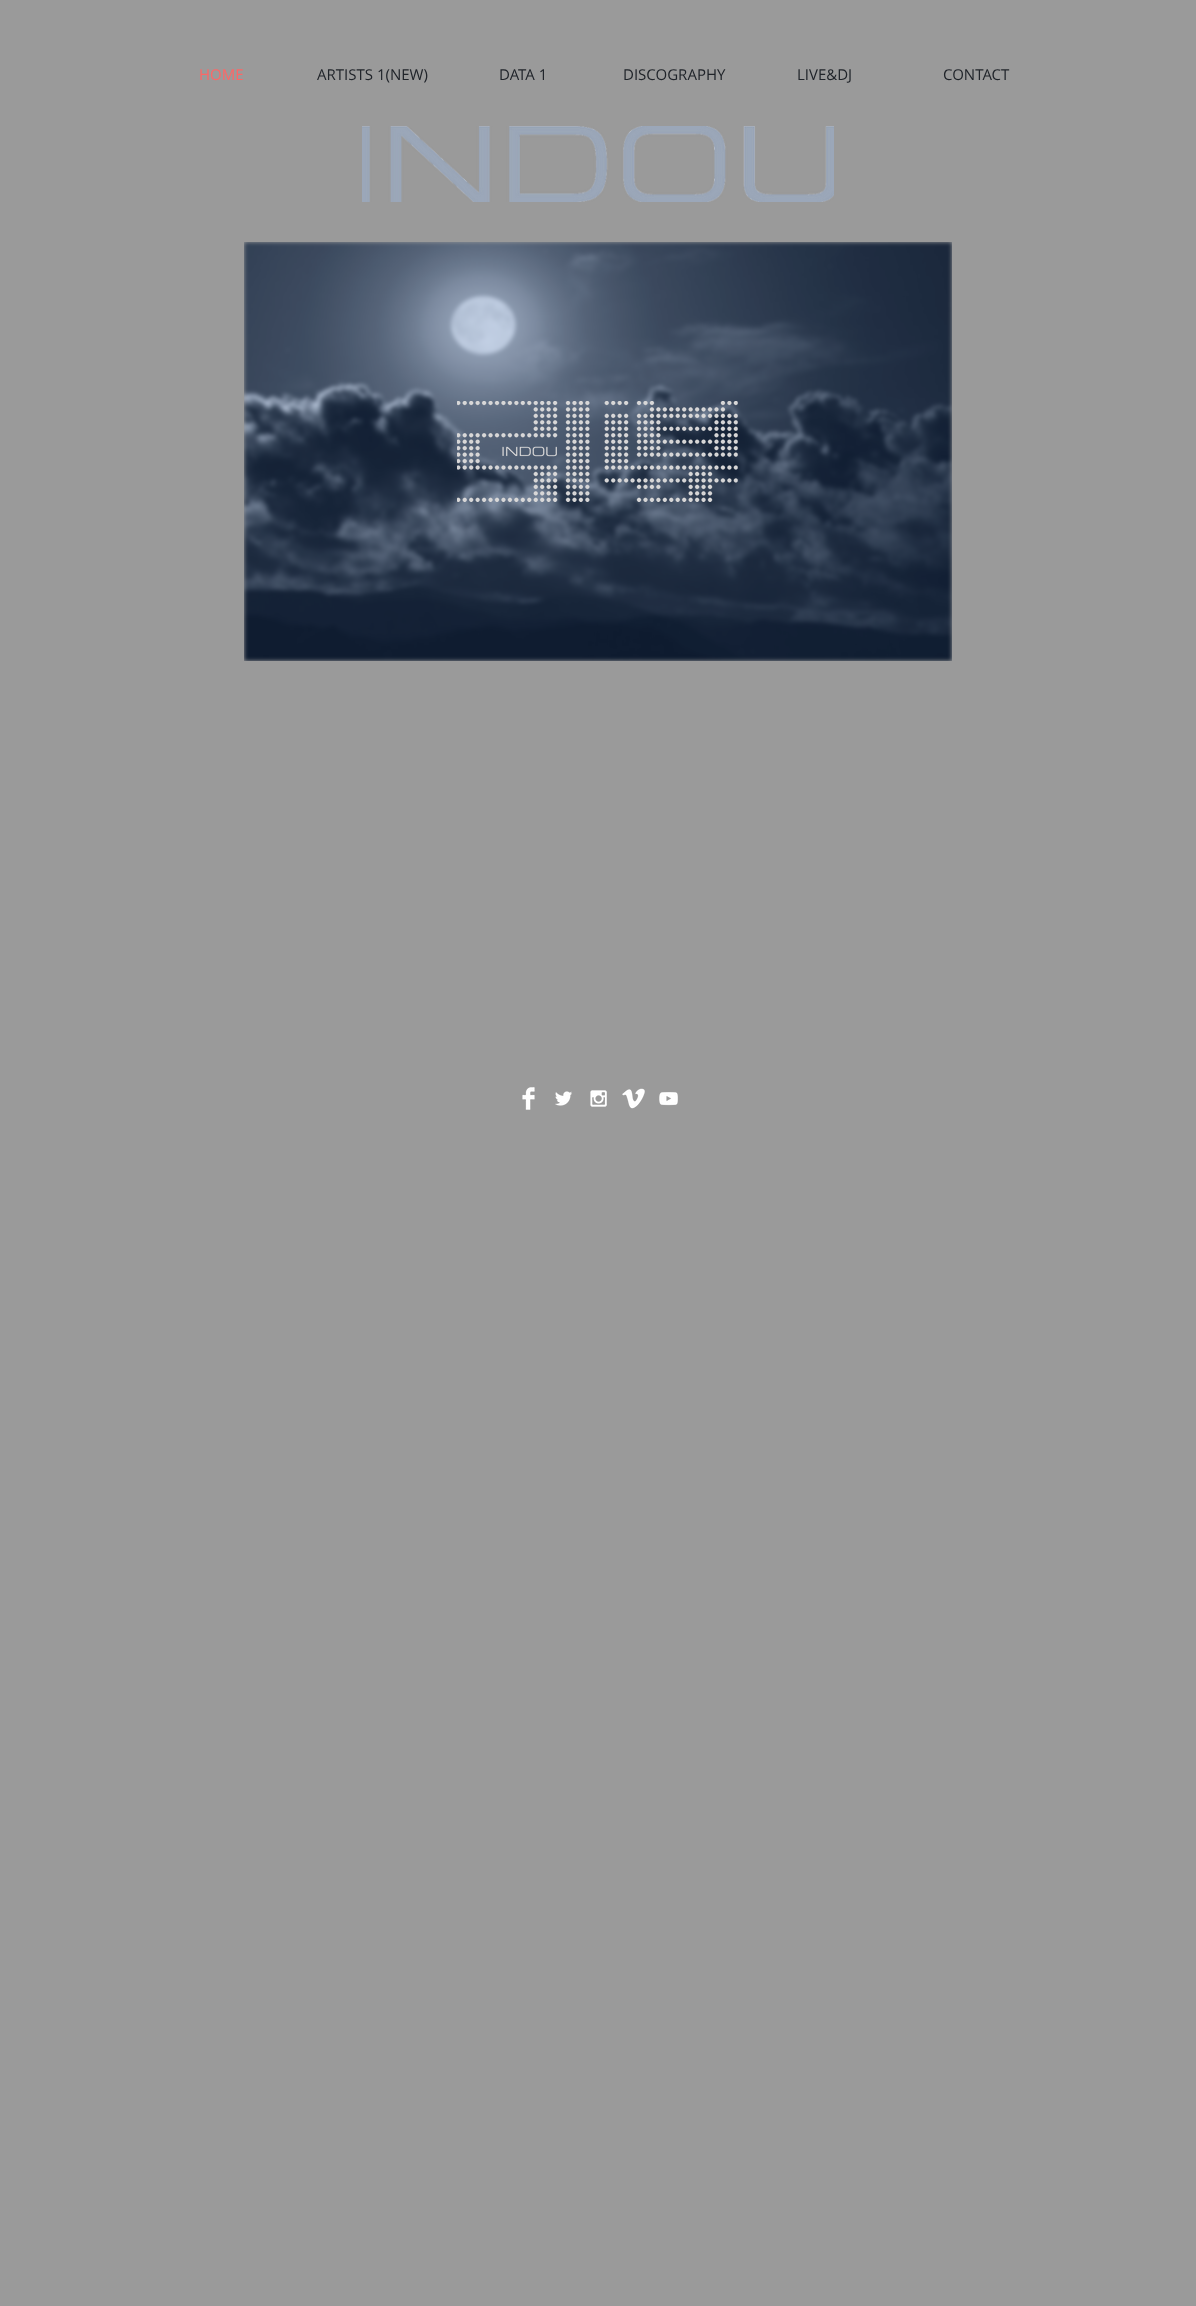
<svg xmlns="http://www.w3.org/2000/svg" width="1196" height="2306" viewBox="0 0 1196 2306">
  <rect width="100%" height="100%" fill="#9a9a9a"/>
  <text x="199" y="80" font-family="Open Sans" font-size="15" fill="#ff6666">HOME</text>
  <text x="317" y="80" font-family="Open Sans" font-size="15" fill="#20242a">ARTISTS 1(NEW)</text>
  <text x="499" y="80" font-family="Open Sans" font-size="15" fill="#20242a">DATA 1</text>
  <text x="623" y="80" font-family="Open Sans" font-size="15" fill="#20242a">DISCOGRAPHY</text>
  <text x="797" y="80" font-family="Open Sans" font-size="15" fill="#20242a">LIVE&amp;DJ</text>
  <text x="943" y="80" font-family="Open Sans" font-size="15" fill="#20242a">CONTACT</text>
  <image x="362" y="126" width="472" height="76" href="img1.png"/>
  <image x="244" y="242" width="708" height="419" href="img2.png"/>
  <image x="457" y="401" width="281" height="101" href="img3.png"/>
  <image x="522" y="1087" width="13" height="23" href="img4.png"/>
  <image x="555" y="1091" width="17" height="15" href="img5.png"/>
  <image x="590" y="1090" width="17" height="17" href="img6.png"/>
  <image x="622" y="1088" width="23" height="21" href="img7.png"/>
  <image x="659" y="1092" width="19" height="14" href="img8.png"/>
</svg>
